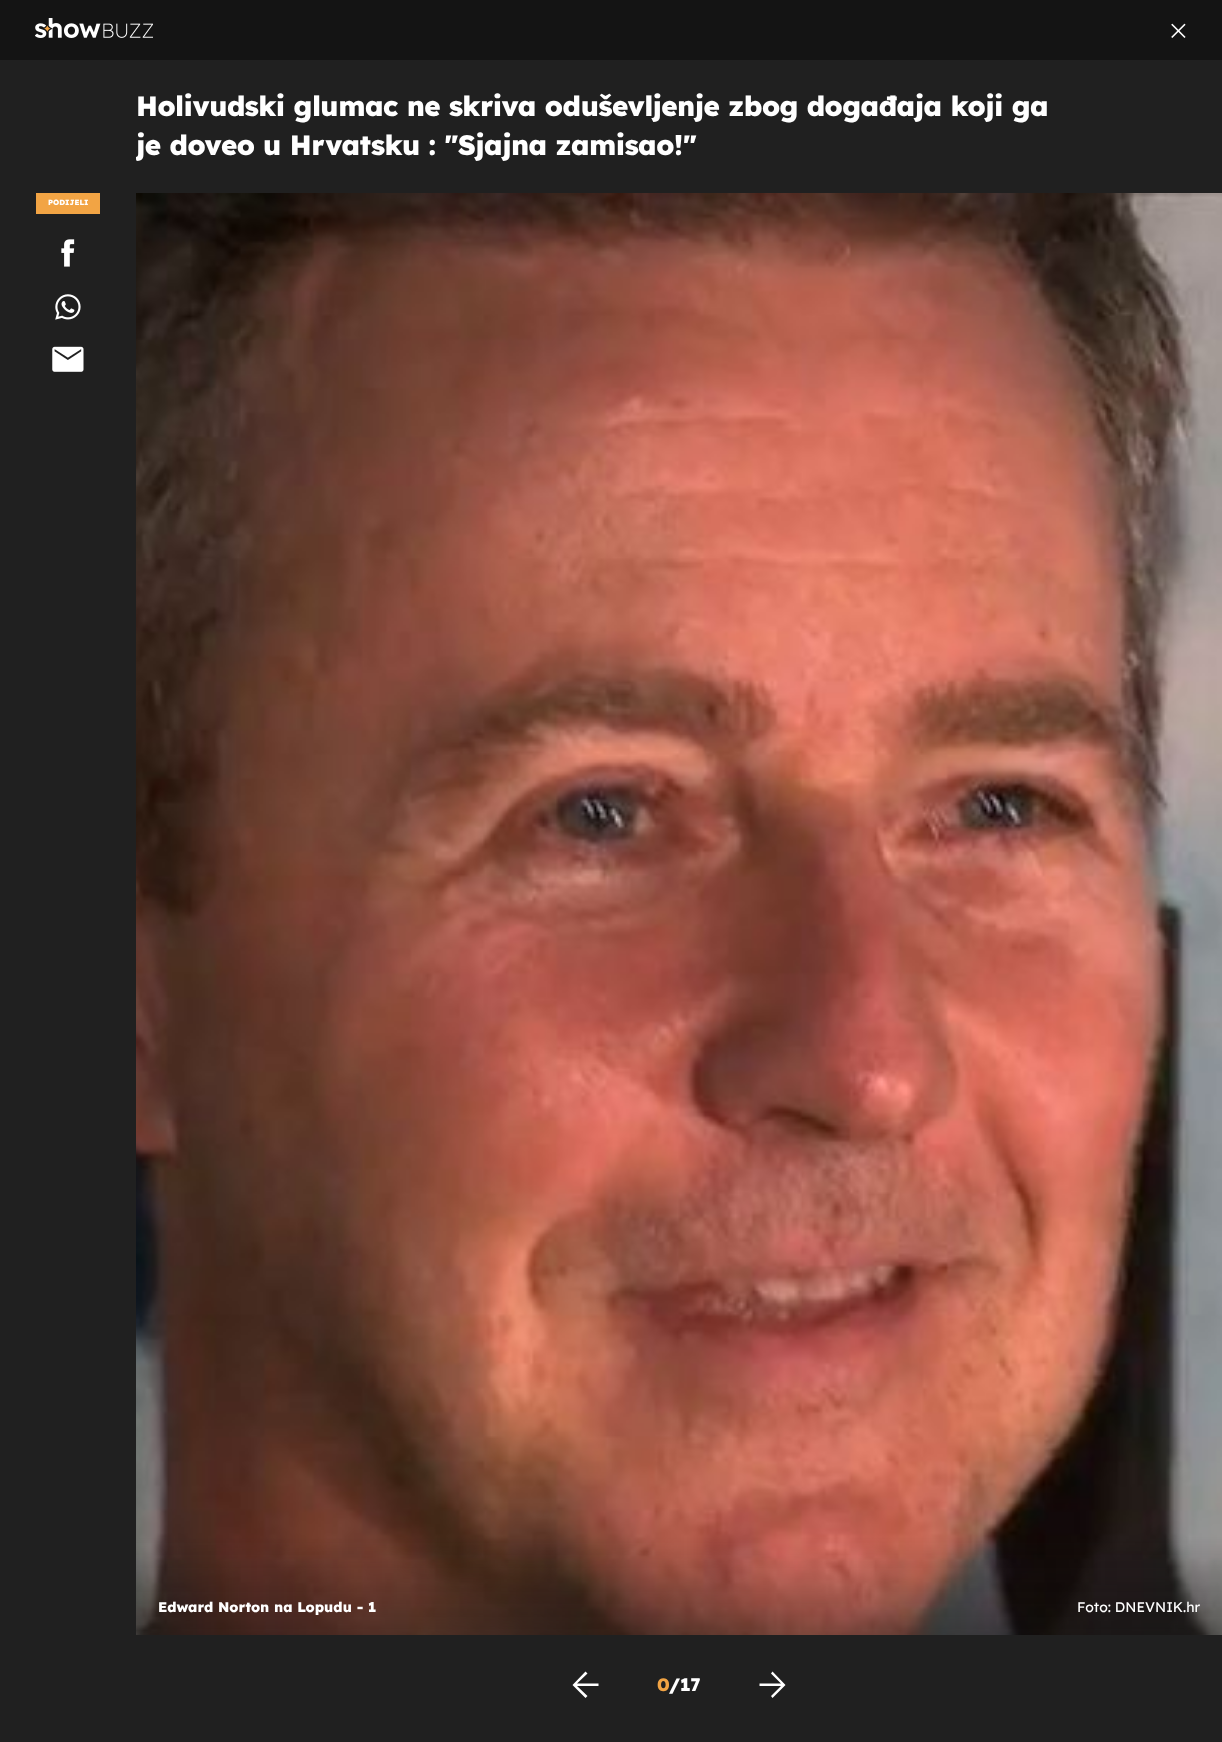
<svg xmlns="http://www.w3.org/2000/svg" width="1222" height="1742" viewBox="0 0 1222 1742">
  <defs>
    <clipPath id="clip1"><rect x="136" y="86" width="934" height="79"/></clipPath>
  </defs>
  <rect width="100%" height="100%" fill="#202020"/>
  <rect x="0" y="0" width="1222" height="60" fill="#141414"/>
  <image x="35" y="18" width="118" height="20" href="img1.png"/>
  <image x="1171" y="23" width="15" height="15" href="img2.png"/>
  <text x="136" y="116" font-family="Lexend" font-size="27.85" font-weight="800" letter-spacing="-0.55" fill="#ffffff">Holivudski glumac ne skriva oduševljenje zbog događaja koji ga</text>
  <g clip-path="url(#clip1)">
    <text x="136" y="155" font-family="Lexend" font-size="27.85" font-weight="800" letter-spacing="-0.55" fill="#ffffff">je doveo u Hrvatsku : "Sjajna zamisao!"</text>
  </g>
  <rect x="36" y="193" width="64" height="21" fill="#f2a444"/>
  <text x="48" y="205" font-family="Lexend" font-size="7.5" font-weight="800" fill="#ffffff">PODIJELI</text>
  <image x="61" y="239" width="14" height="28" href="img3.png"/>
  <image x="55" y="294" width="26" height="26" href="img4.png"/>
  <image x="52" y="346" width="32" height="26" href="img5.png"/>
  <image x="136" y="193" width="1086" height="1442" href="img6.png"/>
  <text x="158" y="1612" font-family="Lexend" font-size="14" font-weight="800" fill="#ffffff">Edward Norton na Lopudu - 1</text>
  <text x="1077" y="1612" font-family="Lexend" font-size="14" fill="#ffffff">Foto: DNEVNIK.hr</text>
  <path d="M585.5 1698L587.5 1696L577 1686H598.5V1683.5H577L587.5 1673.5L585.5 1671.5L572.5 1685Z" fill="#ffffff"/>
  <text x="657" y="1691" font-family="Lexend" font-size="18" font-weight="800" fill="#f2a444">0</text>
  <text x="669" y="1691" font-family="Lexend" font-size="18" font-weight="800" fill="#ffffff">/</text>
  <text x="680" y="1691" font-family="Lexend" font-size="18" font-weight="800" fill="#ffffff">17</text>
  <path d="M772.5 1698L771 1696L781 1686H759.5V1683.5H781L771 1673.5L772.5 1671.5L785.5 1685Z" fill="#ffffff"/>
</svg>
